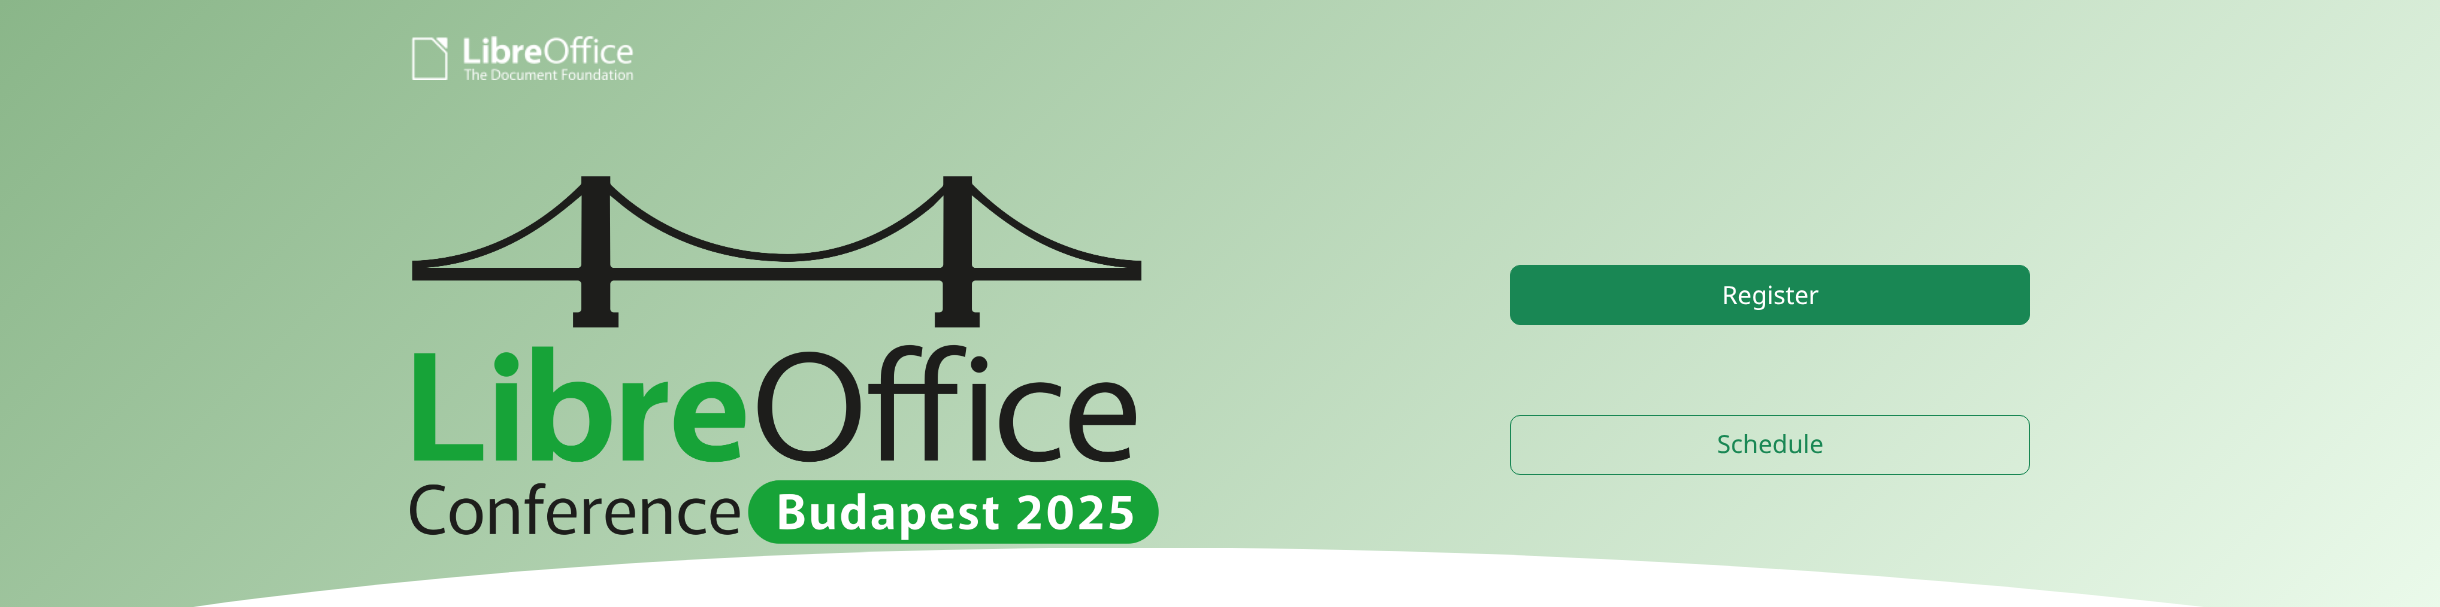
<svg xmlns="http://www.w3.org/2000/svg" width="2440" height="607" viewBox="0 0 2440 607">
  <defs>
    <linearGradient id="g1" gradientUnits="userSpaceOnUse" x1="419" y1="-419" x2="2021" y2="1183"><stop offset="0" stop-color="#8ab689"/><stop offset="1" stop-color="#effdef"/></linearGradient>
    <clipPath id="clip1"><rect x="0" y="548" width="2440" height="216"/></clipPath>
  </defs>
  <rect width="100%" height="100%" fill="#ffffff"/>
  <rect x="0" y="0" width="2440" height="607" fill="url(#g1)"/>
  <image x="411" y="36" width="223" height="44" href="img1.png"/>
  <image x="410" y="176" width="749" height="368" href="img2.png"/>
  <rect x="1510.5" y="265.5" width="519" height="59" rx="9.5" fill="#198754" stroke="#198754"/>
  <text x="1722" y="304" font-family="Noto Sans" font-size="25" fill="#ffffff">Register</text>
  <rect x="1510.5" y="415.5" width="519" height="59" rx="9.5" fill="none" stroke="#198754"/>
  <text x="1717" y="453" font-family="Noto Sans" font-size="25" fill="#198754">Schedule</text>
  <g clip-path="url(#clip1)">
    <path d="M2439 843H0V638C897 474 2000 570 2439 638Z" fill="#ffffff"/>
  </g>
</svg>
